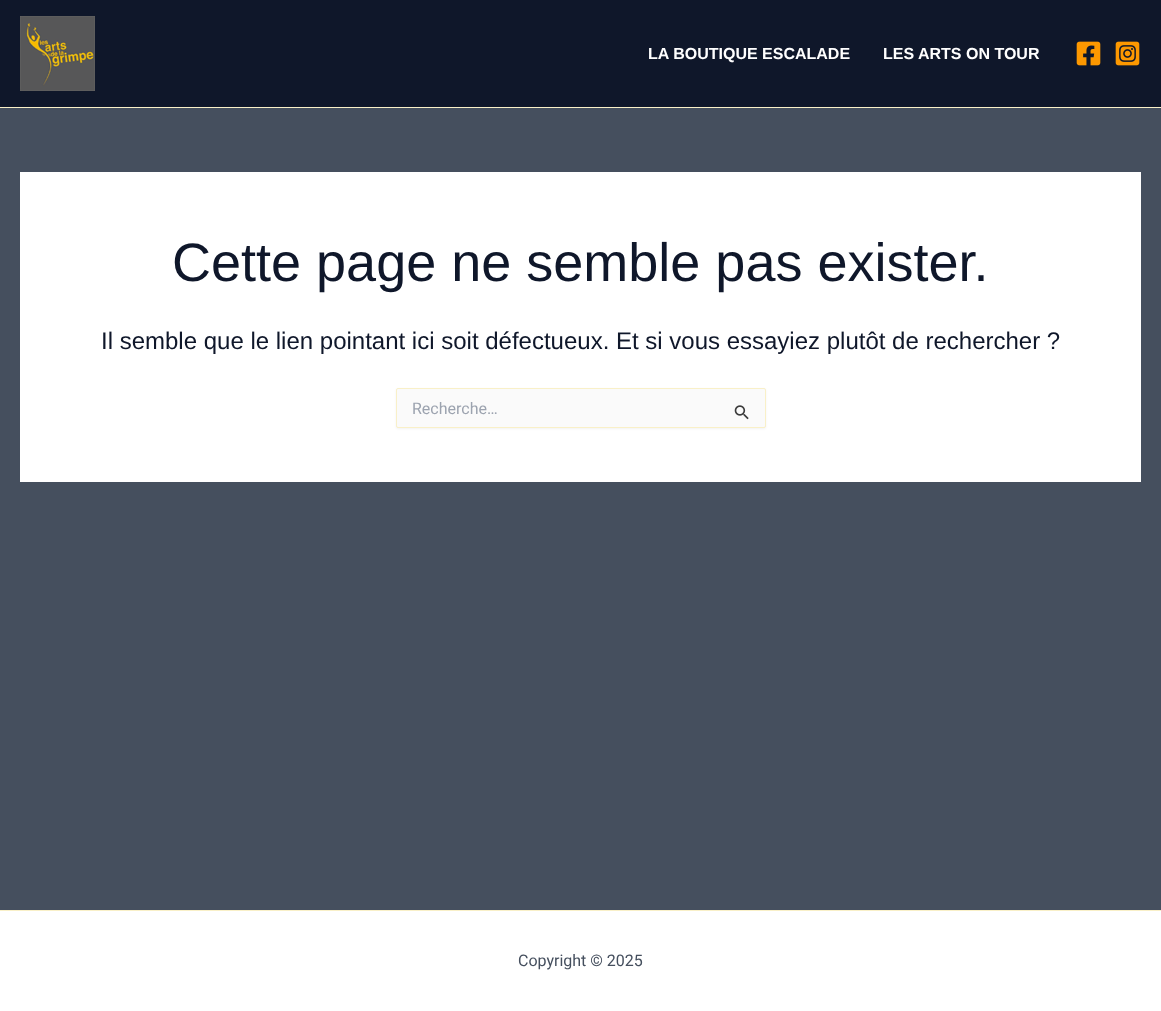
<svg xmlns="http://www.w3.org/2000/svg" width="1161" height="1011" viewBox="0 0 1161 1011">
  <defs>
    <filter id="blur1" x="-50%" y="-200%" width="200%" height="500%"><feGaussianBlur stdDeviation="1"/></filter>
  </defs>
  <rect width="100%" height="100%" fill="#454f5e"/>
  <rect x="0" y="0" width="1161" height="107" fill="#0f172a"/>
  <rect x="0" y="107" width="1161" height="1" fill="#f9f0c8"/>
  <image x="20" y="16" width="75" height="75" href="img1.png"/>
  <text x="648" y="59" font-family="Liberation Sans" font-size="16" font-weight="bold" fill="#ffffff">LA BOUTIQUE ESCALADE</text>
  <text x="883" y="59" font-family="Liberation Sans" font-size="16" font-weight="bold" fill="#ffffff">LES ARTS ON TOUR</text>
  <image x="1076" y="41" width="25" height="25" href="img2.png"/>
  <image x="1115" y="41" width="25" height="25" href="img3.png"/>
  <rect x="20" y="172" width="1121" height="310" fill="#ffffff"/>
  <text x="172" y="281" font-family="Liberation Sans" font-size="54" fill="#0f172a">Cette page ne semble pas exister.</text>
  <text x="101" y="349" font-family="Liberation Sans" font-size="24" fill="#0f172a">Il semble que le lien pointant ici soit défectueux. Et si vous essayiez plutôt de rechercher ?</text>
  <rect x="396" y="389" width="370" height="40" rx="2" fill="#000000" fill-opacity="0.05" filter="url(#blur1)"/>
  <rect x="396.5" y="388.5" width="369" height="39" rx="1.5" fill="#fafafa" stroke="#f9f0c8"/>
  <text x="412" y="414" font-family="Roboto" font-size="16" fill="#9ca3af">Recherche…</text>
  <image x="734" y="405" width="15" height="15" href="img4.png"/>
  <rect x="0" y="911" width="1161" height="100" fill="#ffffff"/>
  <rect x="0" y="910" width="1161" height="1" fill="#f9f0c8"/>
  <text x="518" y="966" font-family="Roboto" font-size="16" fill="#454f5e">Copyright © 2025</text>
</svg>
